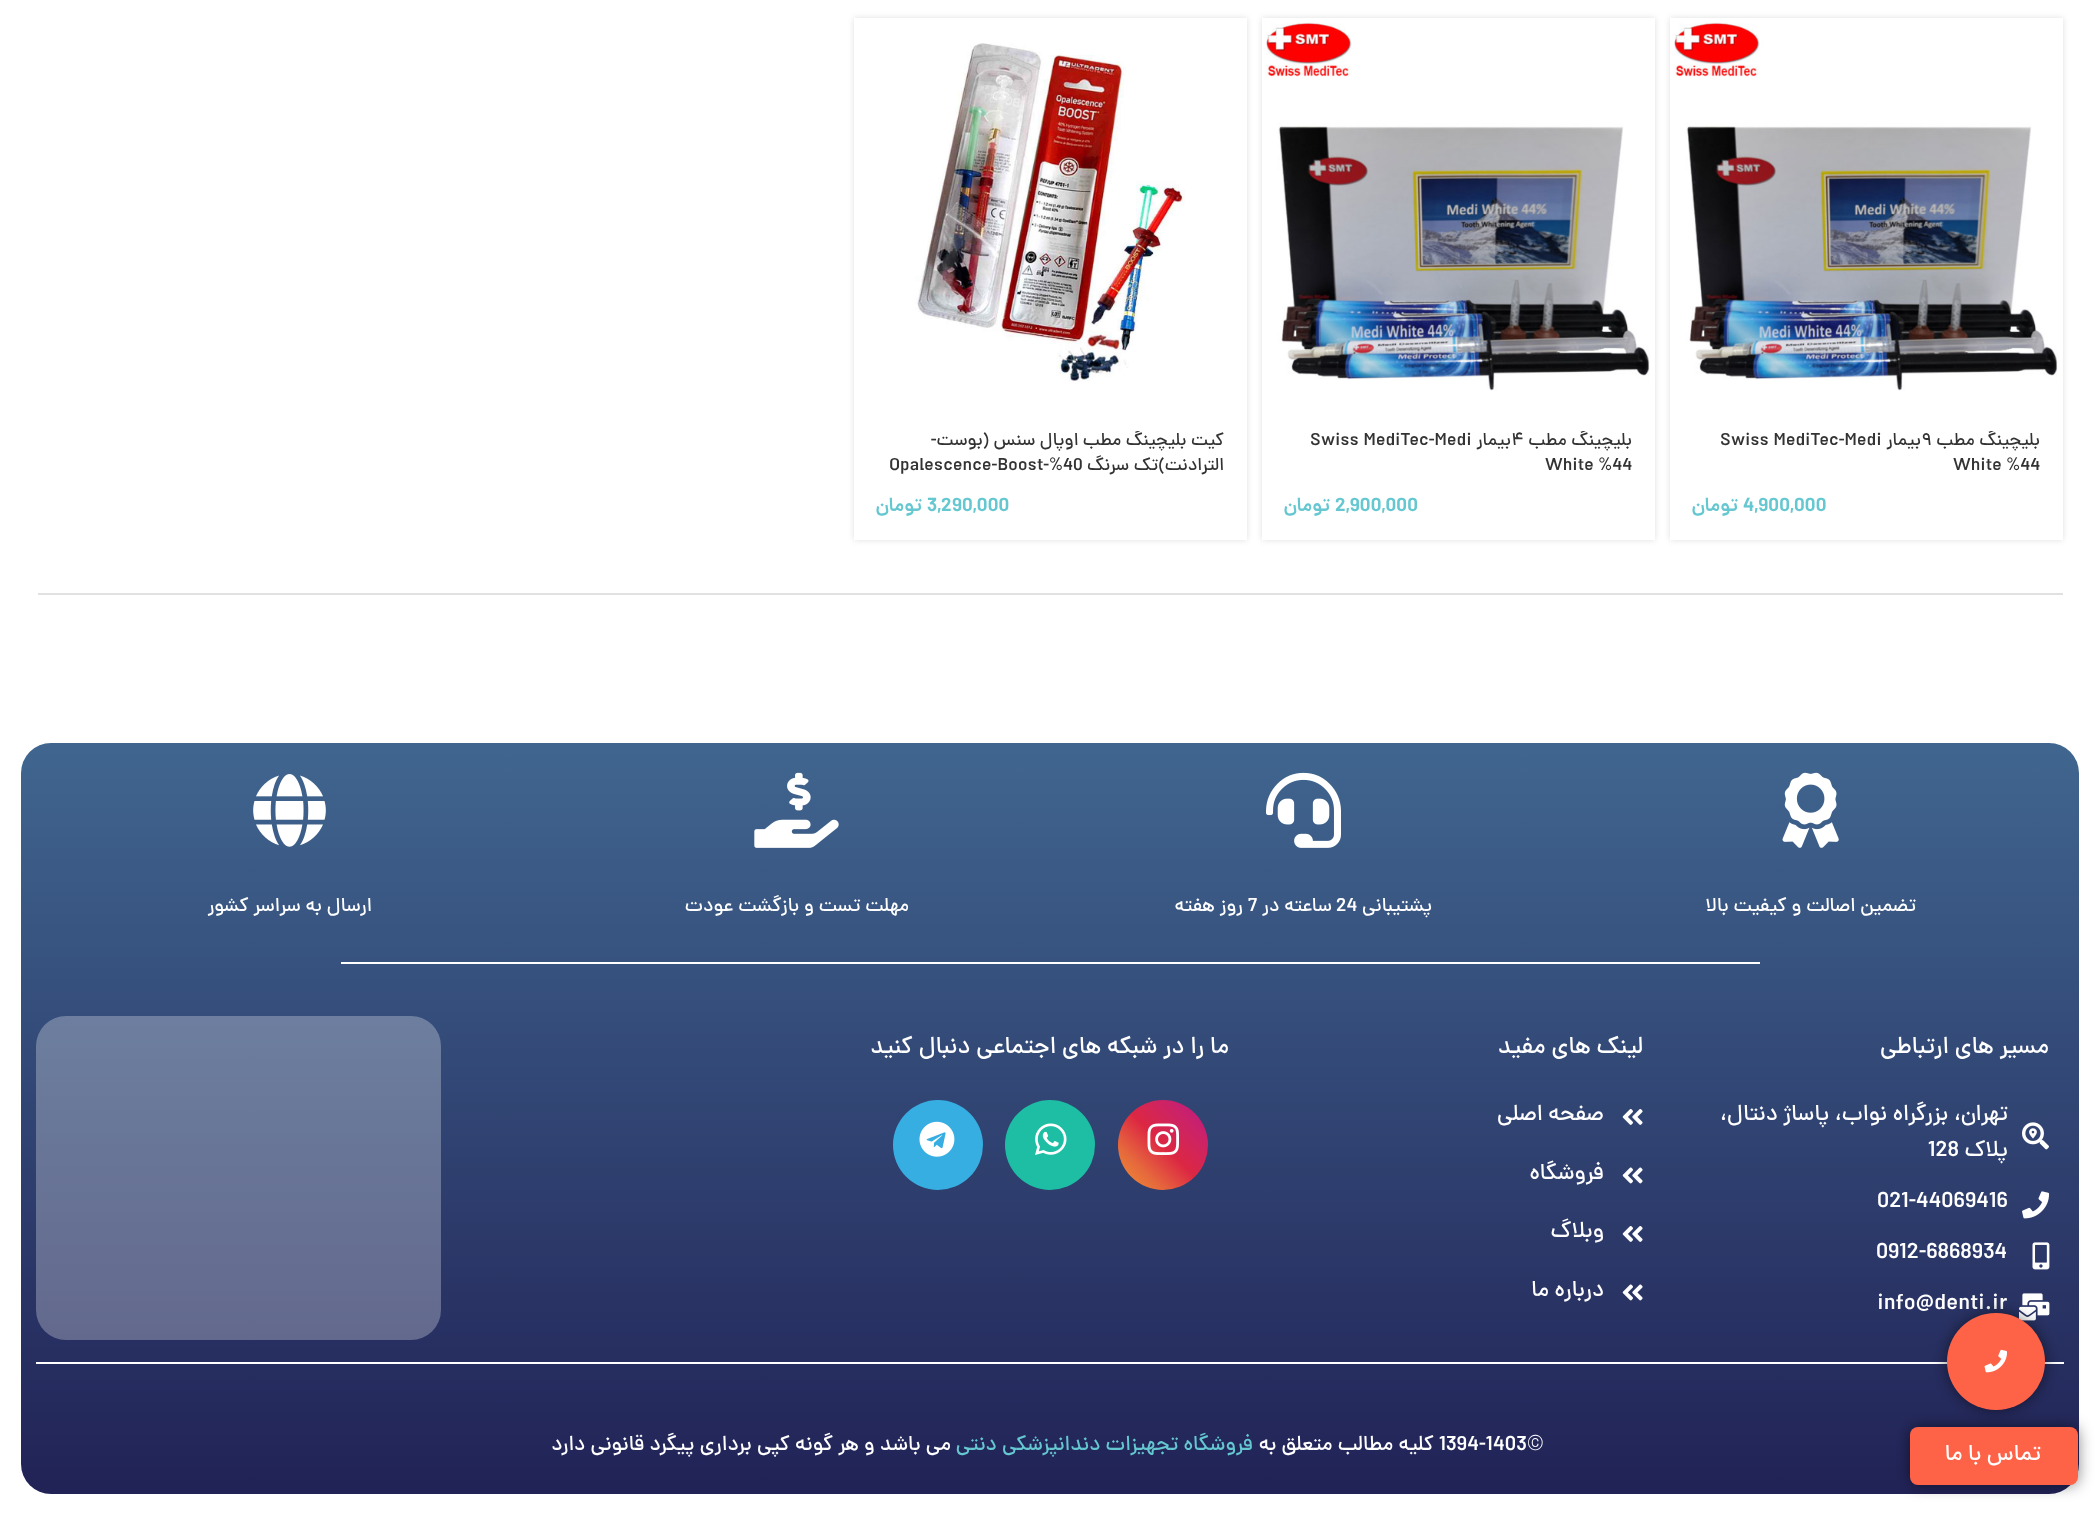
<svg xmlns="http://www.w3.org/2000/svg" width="2100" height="1514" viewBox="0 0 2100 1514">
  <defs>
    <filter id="blur1" x="-50%" y="-200%" width="200%" height="500%"><feGaussianBlur stdDeviation="3"/></filter>
    <clipPath id="clip1"><rect x="1692" y="431" width="348" height="49"/></clipPath>
    <clipPath id="clip2"><rect x="1284" y="431" width="348" height="49"/></clipPath>
    <clipPath id="clip3"><rect x="876" y="431" width="348" height="49"/></clipPath>
    <linearGradient id="g1" gradientUnits="userSpaceOnUse" x1="1050" y1="742" x2="1050" y2="1494"><stop offset="0" stop-color="#40668f"/><stop offset="1" stop-color="#212256"/></linearGradient>
    <linearGradient id="g2" gradientUnits="userSpaceOnUse" x1="1118" y1="1190" x2="1208" y2="1100"><stop offset="0" stop-color="#f09433"/><stop offset="0.25" stop-color="#e6683c"/><stop offset="0.5" stop-color="#dc2743"/><stop offset="0.75" stop-color="#cc2366"/><stop offset="1" stop-color="#bc1888"/></linearGradient>
    <filter id="blur2" x="-50%" y="-200%" width="200%" height="500%"><feGaussianBlur stdDeviation="7.5"/></filter>
  </defs>
  <rect width="100%" height="100%" fill="#ffffff"/>
  <rect x="1670" y="18" width="393" height="522" fill="#000000" fill-opacity="0.12" filter="url(#blur1)"/>
  <rect x="1670" y="18" width="393" height="522" fill="#ffffff"/>
  <image x="1674" y="22" width="384" height="369" href="img1.png"/>
  <g clip-path="url(#clip1)">
    <text x="2040" y="445" font-family="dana" font-size="18" font-weight="500" direction="rtl" fill="#333333">بلیچینگ مطب</text>
  </g>
  <text x="1921" y="445" font-family="dana" font-size="18" font-weight="500" fill="#333333">۹</text>
  <text x="1921" y="445" font-family="dana" font-size="18" font-weight="500" direction="rtl" fill="#333333">بیمار</text>
  <text x="1720" y="445" font-family="dana" font-size="18" font-weight="500" fill="#333333">Swiss MediTec-Medi</text>
  <text x="1953" y="470" font-family="dana" font-size="18" font-weight="500" fill="#333333">White %44</text>
  <text x="1743" y="511" font-family="dana" font-size="19.5" font-weight="600" fill="#65c7d0">4,900,000</text>
  <text x="1738" y="511" font-family="dana" font-size="19.5" font-weight="600" direction="rtl" fill="#65c7d0">تومان</text>
  <rect x="1262" y="18" width="393" height="522" fill="#000000" fill-opacity="0.12" filter="url(#blur1)"/>
  <rect x="1262" y="18" width="393" height="522" fill="#ffffff"/>
  <image x="1266" y="22" width="384" height="369" href="img1.png"/>
  <g clip-path="url(#clip2)">
    <text x="1632" y="445" font-family="dana" font-size="18" font-weight="500" direction="rtl" fill="#333333">بلیچینگ مطب</text>
  </g>
  <text x="1511" y="445" font-family="dana" font-size="18" font-weight="500" fill="#333333">۴</text>
  <text x="1511" y="445" font-family="dana" font-size="18" font-weight="500" direction="rtl" fill="#333333">بیمار</text>
  <text x="1310" y="445" font-family="dana" font-size="18" font-weight="500" fill="#333333">Swiss MediTec-Medi</text>
  <text x="1545" y="470" font-family="dana" font-size="18" font-weight="500" fill="#333333">White %44</text>
  <text x="1335" y="511" font-family="dana" font-size="19.5" font-weight="600" fill="#65c7d0">2,900,000</text>
  <text x="1330" y="511" font-family="dana" font-size="19.5" font-weight="600" direction="rtl" fill="#65c7d0">تومان</text>
  <rect x="854" y="18" width="393" height="522" fill="#000000" fill-opacity="0.12" filter="url(#blur1)"/>
  <rect x="854" y="18" width="393" height="522" fill="#ffffff"/>
  <image x="915" y="43" width="270" height="339" href="img2.png"/>
  <g clip-path="url(#clip3)">
    <text x="1224" y="445" font-family="dana" font-size="18" font-weight="500" direction="rtl" fill="#333333">کیت بلیچینگ مطب اوپال سنس (بوست-</text>
  </g>
  <text x="1224" y="470" font-family="dana" font-size="18" font-weight="500" direction="rtl" fill="#333333">الترادنت)تک سرنگ</text>
  <text x="889" y="470" font-family="dana" font-size="18" font-weight="500" fill="#333333">Opalescence-Boost-%40</text>
  <text x="927" y="511" font-family="dana" font-size="19.5" font-weight="600" fill="#65c7d0">3,290,000</text>
  <text x="922" y="511" font-family="dana" font-size="19.5" font-weight="600" direction="rtl" fill="#65c7d0">تومان</text>
  <rect x="38" y="593" width="2025" height="2" fill="#e1e1e1"/>
  <rect x="21" y="743" width="2058" height="751" rx="30" fill="url(#g1)"/>
  <image x="1782" y="772" width="57" height="76" href="img3.png"/>
  <text x="1916" y="911" font-family="dana" font-size="19.5" font-weight="500" direction="rtl" fill="#ffffff">تضمین اصالت و کیفیت بالا</text>
  <image x="1266" y="772" width="75" height="76" href="img4.png"/>
  <text x="1432" y="911" font-family="dana" font-size="19.5" font-weight="500" direction="rtl" fill="#ffffff">پشتیبانی</text>
  <text x="1336" y="911" font-family="dana" font-size="19.5" font-weight="500" fill="#ffffff">24</text>
  <text x="1332" y="911" font-family="dana" font-size="19.5" font-weight="500" direction="rtl" fill="#ffffff">ساعته در</text>
  <text x="1248" y="911" font-family="dana" font-size="19.5" font-weight="500" fill="#ffffff">7</text>
  <text x="1243" y="911" font-family="dana" font-size="19.5" font-weight="500" direction="rtl" fill="#ffffff">روز هفته</text>
  <image x="754" y="772" width="85" height="76" href="img5.png"/>
  <text x="909" y="911" font-family="dana" font-size="19.5" font-weight="500" direction="rtl" fill="#ffffff">مهلت تست و بازگشت عودت</text>
  <image x="253" y="774" width="73" height="73" href="img6.png"/>
  <text x="372" y="911" font-family="dana" font-size="19.5" font-weight="500" direction="rtl" fill="#ffffff">ارسال به سراسر کشور</text>
  <rect x="341" y="962" width="1419" height="2" fill="#ffffff"/>
  <text x="2049" y="1053" font-family="dana" font-size="24" font-weight="500" direction="rtl" fill="#ffffff">مسیر های ارتباطی</text>
  <image x="2022" y="1122" width="27" height="28" href="img7.png"/>
  <text x="2008" y="1120" font-family="dana" font-size="22.5" font-weight="500" direction="rtl" fill="#ffffff">تهران، بزرگراه نواب، پاساژ دنتال،</text>
  <text x="2008" y="1156" font-family="dana" font-size="22.5" font-weight="500" direction="rtl" fill="#ffffff">پلاک</text>
  <text x="1928" y="1156" font-family="dana" font-size="22.5" font-weight="500" fill="#ffffff">128</text>
  <image x="2022" y="1191" width="28" height="28" href="img8.png"/>
  <text x="1877" y="1207" font-family="dana" font-size="22.5" font-weight="500" fill="#ffffff">021-44069416</text>
  <image x="2032" y="1242" width="18" height="28" href="img9.png"/>
  <text x="1876" y="1258" font-family="dana" font-size="22.5" font-weight="500" fill="#ffffff">0912-6868934</text>
  <image x="2019" y="1293" width="31" height="28" href="img10.png"/>
  <text x="1877" y="1309" font-family="dana" font-size="22.5" font-weight="500" fill="#ffffff">info@denti.ir</text>
  <text x="1643" y="1053" font-family="dana" font-size="24" font-weight="500" direction="rtl" fill="#ffffff">لینک های مفید</text>
  <image x="1622" y="1109" width="21" height="16" href="img11.png"/>
  <text x="1604" y="1120" font-family="dana" font-size="22.5" font-weight="500" direction="rtl" fill="#ffffff">صفحه اصلی</text>
  <image x="1622" y="1167" width="21" height="17" href="img12.png"/>
  <text x="1604" y="1179" font-family="dana" font-size="22.5" font-weight="500" direction="rtl" fill="#ffffff">فروشگاه</text>
  <image x="1622" y="1226" width="21" height="16" href="img13.png"/>
  <text x="1604" y="1237" font-family="dana" font-size="22.5" font-weight="500" direction="rtl" fill="#ffffff">وبلاگ</text>
  <image x="1622" y="1284" width="21" height="17" href="img14.png"/>
  <text x="1604" y="1296" font-family="dana" font-size="22.5" font-weight="500" direction="rtl" fill="#ffffff">درباره ما</text>
  <text x="1229" y="1053" font-family="dana" font-size="24" font-weight="500" direction="rtl" fill="#ffffff">ما را در شبکه های اجتماعی دنبال کنید</text>
  <circle cx="1163" cy="1145" r="45" fill="url(#g2)"/>
  <image x="1147" y="1123" width="32" height="32" href="img15.png"/>
  <circle cx="1050" cy="1145" r="45" fill="#1ebea5"/>
  <image x="1035" y="1123" width="32" height="32" href="img16.png"/>
  <circle cx="938" cy="1145" r="45" fill="#37aee2"/>
  <image x="919" y="1121" width="36" height="36" href="img17.png"/>
  <rect x="36" y="1016" width="405" height="324" rx="30" fill="#ffffff" fill-opacity="0.28"/>
  <rect x="36" y="1362" width="2028" height="2" fill="#ffffff"/>
  <text x="1527" y="1450" font-family="'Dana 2'" font-size="21" font-weight="500" fill="#ffffff">©</text>
  <text x="1439" y="1450" font-family="dana" font-size="21" font-weight="500" fill="#ffffff">1394-1403</text>
  <text x="1434" y="1450" font-family="dana" font-size="21" font-weight="500" direction="rtl" fill="#ffffff">کلیه مطالب متعلق به</text>
  <text x="1253" y="1450" font-family="dana" font-size="21" font-weight="500" direction="rtl" fill="#65c7d0">فروشگاه تجهیزات دندانپزشکی دنتی</text>
  <text x="951" y="1450" font-family="dana" font-size="21" font-weight="500" direction="rtl" fill="#ffffff">می باشد و هر گونه کپی برداری پیگرد قانونی دارد</text>
  <rect x="1947" y="1313" width="98" height="97" rx="48.5" fill="#000000" fill-opacity="0.5" filter="url(#blur2)"/>
  <rect x="1947" y="1313" width="98" height="97" rx="48.5" fill="#ff6347"/>
  <image x="1984" y="1349" width="23" height="24" href="img18.png"/>
  <rect x="1910" y="1427" width="168" height="58" rx="8" fill="#000000" fill-opacity="0.5" filter="url(#blur2)"/>
  <rect x="1910" y="1427" width="168" height="58" rx="8" fill="#ff6347"/>
  <text x="2041" y="1460" font-family="dana" font-size="22.5" font-weight="500" direction="rtl" fill="#ffffff">تماس با ما</text>
</svg>
